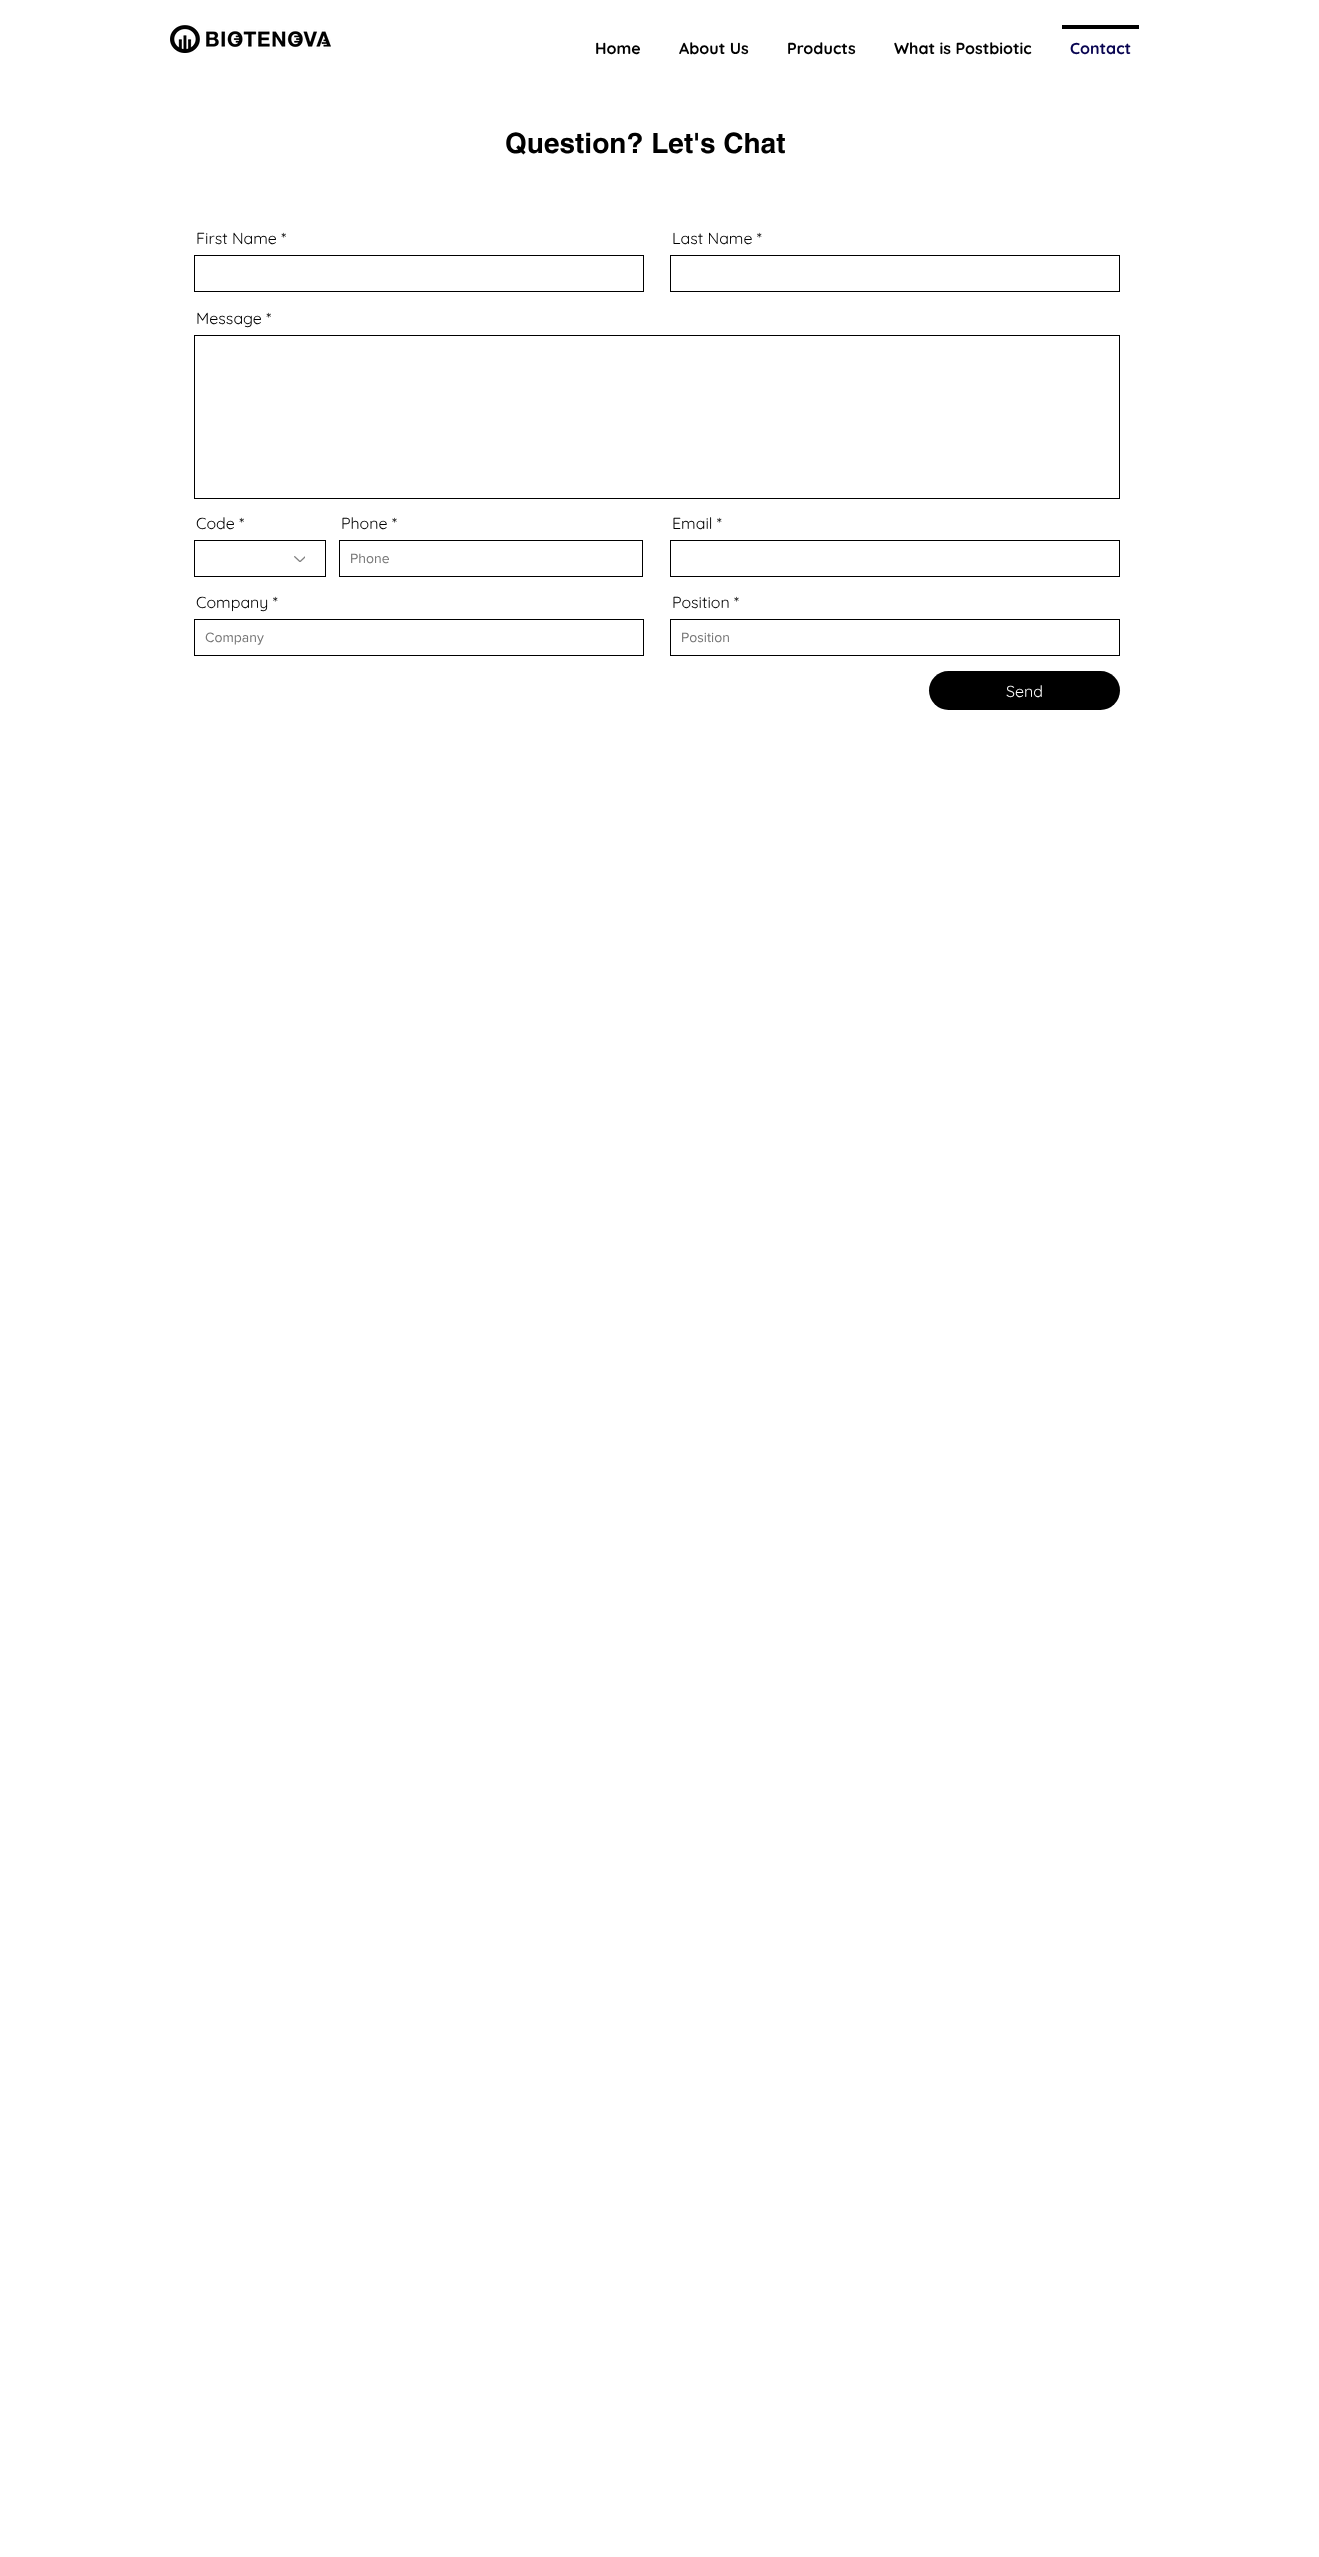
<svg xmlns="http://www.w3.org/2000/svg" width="1319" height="2557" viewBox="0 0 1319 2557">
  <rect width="100%" height="100%" fill="#ffffff"/>
  <image x="170" y="25" width="161" height="28" href="img1.png"/>
  <text x="595" y="54" font-family="Quicksand" font-size="16" font-weight="bold" fill="#000000">Home</text>
  <text x="679" y="54" font-family="Quicksand" font-size="16" font-weight="bold" fill="#000000">About Us</text>
  <text x="787" y="54" font-family="Quicksand" font-size="16" font-weight="bold" fill="#000000">Products</text>
  <text x="894" y="54" font-family="Quicksand" font-size="16" font-weight="bold" fill="#000000">What is Postbiotic</text>
  <rect x="1062" y="25" width="77" height="4" fill="#000000"/>
  <text x="1070" y="54" font-family="Quicksand" font-size="16" font-weight="bold" fill="#080451">Contact</text>
  <text x="505" y="153" font-family="helvetica" font-size="28" font-weight="bold" fill="#000000">Question? Let's Chat</text>
  <text x="196" y="244" font-family="Quicksand" font-size="16" fill="#000000">First Name *</text>
  <rect x="194.5" y="255.5" width="449" height="36" fill="none" stroke="#000000"/>
  <text x="672" y="244" font-family="Quicksand" font-size="16" fill="#000000">Last Name *</text>
  <rect x="670.5" y="255.5" width="449" height="36" fill="none" stroke="#000000"/>
  <text x="196" y="324" font-family="Quicksand" font-size="16" fill="#000000">Message *</text>
  <rect x="194.5" y="335.5" width="925" height="163" fill="none" stroke="#000000"/>
  <text x="196" y="529" font-family="Quicksand" font-size="16" fill="#000000">Code *</text>
  <rect x="194.5" y="540.5" width="131" height="36" fill="none" stroke="#000000"/>
  <image x="294" y="556" width="11" height="6" href="img2.png"/>
  <text x="341" y="529" font-family="Quicksand" font-size="16" fill="#000000">Phone *</text>
  <rect x="339.5" y="540.5" width="303" height="36" fill="none" stroke="#000000"/>
  <text x="350" y="563" font-family="'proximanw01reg'" font-size="14" fill="#757575">Phone</text>
  <text x="672" y="529" font-family="Quicksand" font-size="16" fill="#000000">Email *</text>
  <rect x="670.5" y="540.5" width="449" height="36" fill="none" stroke="#000000"/>
  <text x="196" y="608" font-family="Quicksand" font-size="16" fill="#000000">Company *</text>
  <rect x="194.5" y="619.5" width="449" height="36" fill="none" stroke="#000000"/>
  <text x="205" y="642" font-family="'proximanw01reg'" font-size="14" fill="#757575">Company</text>
  <text x="672" y="608" font-family="Quicksand" font-size="16" fill="#000000">Position *</text>
  <rect x="670.5" y="619.5" width="449" height="36" fill="none" stroke="#000000"/>
  <text x="681" y="642" font-family="'proximanw01reg'" font-size="14" fill="#757575">Position</text>
  <rect x="929" y="671" width="191" height="39" rx="19.5" fill="#000000"/>
  <text x="1006" y="697" font-family="Quicksand" font-size="16" fill="#ffffff">Send</text>
</svg>
